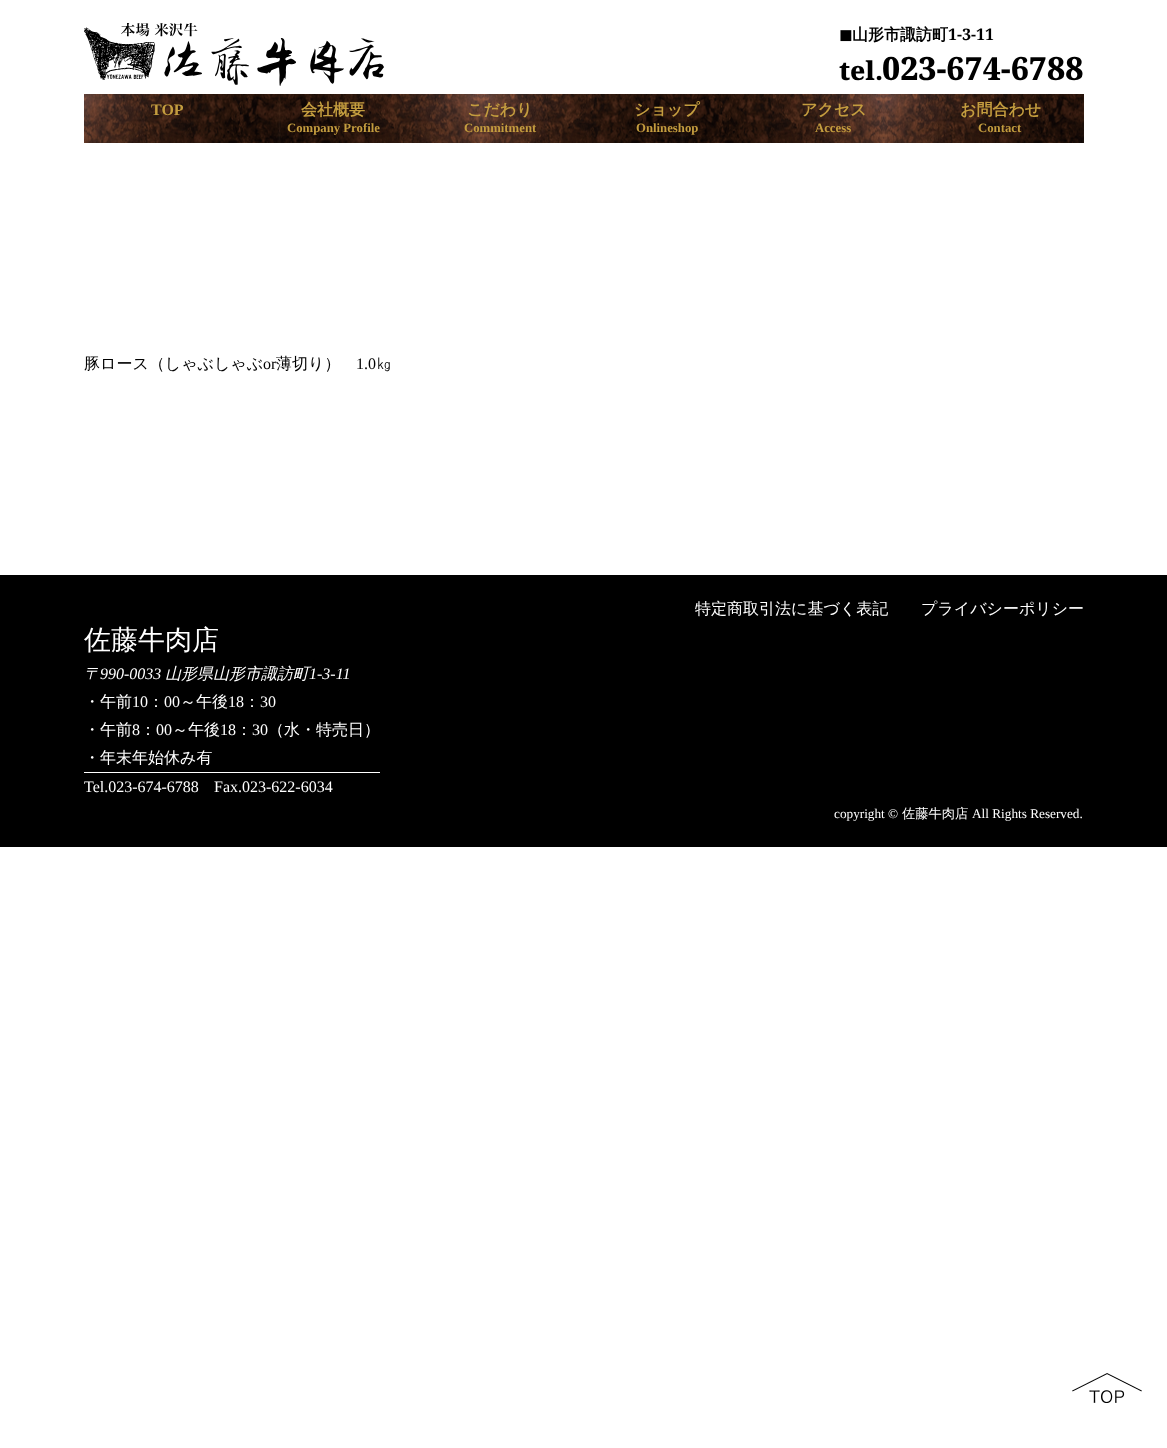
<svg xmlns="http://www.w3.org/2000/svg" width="1167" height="1448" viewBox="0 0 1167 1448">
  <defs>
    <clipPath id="clip1"><rect x="84" y="620" width="296" height="181"/></clipPath>
  </defs>
  <rect width="100%" height="100%" fill="#ffffff"/>
  <image x="84" y="23" width="300" height="63" href="img1.png"/>
  <text x="839" y="40" font-family="DejaVu Sans" font-size="16" font-weight="bold" fill="#000000">◼︎</text>
  <text x="852" y="40" font-family="WenQuanYi Zen Hei" font-size="16" font-weight="bold" fill="#000000">山形市諏訪町</text>
  <text x="948" y="40" font-family="Noto Serif" font-size="16" font-weight="bold" fill="#000000">1-3-11</text>
  <text x="839" y="80" font-family="Noto Serif" font-size="26" font-weight="800" fill="#000000">tel.</text>
  <text x="882" y="80" font-family="Noto Serif" font-size="32" font-weight="800" fill="#000000">023-674-6788</text>
  <image x="84" y="94" width="1000" height="49" href="img2.png"/>
  <text x="151" y="115" font-family="Liberation Serif" font-size="16" font-weight="bold" fill="#c49d3f">TOP</text>
  <text x="301" y="115" font-family="WenQuanYi Zen Hei" font-size="16" font-weight="bold" fill="#c49d3f">会社概要</text>
  <text x="287" y="132" font-family="Liberation Serif" font-size="12.75" font-weight="bold" fill="#c49d3f">Company Profile</text>
  <text x="467" y="115" font-family="WenQuanYi Zen Hei" font-size="16" font-weight="bold" fill="#c49d3f">こだわり</text>
  <text x="464" y="132" font-family="Liberation Serif" font-size="12.75" font-weight="bold" fill="#c49d3f">Commitment</text>
  <text x="634" y="115" font-family="WenQuanYi Zen Hei" font-size="16" font-weight="bold" fill="#c49d3f">ショップ</text>
  <text x="636" y="132" font-family="Liberation Serif" font-size="12.75" font-weight="bold" fill="#c49d3f">Onlineshop</text>
  <text x="801" y="115" font-family="WenQuanYi Zen Hei" font-size="16" font-weight="bold" fill="#c49d3f">アクセス</text>
  <text x="815" y="132" font-family="Liberation Serif" font-size="12.75" font-weight="bold" fill="#c49d3f">Access</text>
  <text x="960" y="115" font-family="WenQuanYi Zen Hei" font-size="16" font-weight="bold" fill="#c49d3f">お問合わせ</text>
  <text x="978" y="132" font-family="Liberation Serif" font-size="12.75" font-weight="bold" fill="#c49d3f">Contact</text>
  <text x="84" y="369" font-family="WenQuanYi Zen Hei" font-size="16" font-weight="500" fill="#000000">豚ロース（しゃぶしゃぶ</text>
  <text x="263" y="369" font-family="Liberation Serif" font-size="16" fill="#000000">or</text>
  <text x="276" y="369" font-family="WenQuanYi Zen Hei" font-size="16" font-weight="500" fill="#000000">薄切り）</text>
  <text x="356" y="369" font-family="Liberation Serif" font-size="16" fill="#000000">1.0</text>
  <text x="376" y="369" font-family="WenQuanYi Zen Hei" font-size="16" font-weight="500" fill="#000000">㎏</text>
  <rect x="0" y="575" width="1167" height="272" fill="#000000"/>
  <text x="695" y="614" font-family="WenQuanYi Zen Hei" font-size="16" font-weight="500" fill="#ffffff">特定商取引法に基づく表記</text>
  <text x="921" y="614" font-family="WenQuanYi Zen Hei" font-size="16" font-weight="500" fill="#ffffff">プライバシーポリシー</text>
  <text x="84" y="649" font-family="WenQuanYi Zen Hei" font-size="27" font-weight="500" fill="#ffffff">佐藤牛肉店</text>
  <text x="84" y="679" font-family="WenQuanYi Zen Hei" font-size="16" font-weight="500" font-style="italic" fill="#ffffff">〒</text>
  <text x="100" y="679" font-family="Liberation Serif" font-size="16" font-style="italic" fill="#ffffff">990-0033</text>
  <text x="165" y="679" font-family="WenQuanYi Zen Hei" font-size="16" font-weight="500" font-style="italic" fill="#ffffff">山形県山形市諏訪町</text>
  <text x="309" y="679" font-family="Liberation Serif" font-size="16" font-style="italic" fill="#ffffff">1-3-11</text>
  <rect x="84" y="772" width="296" height="1" fill="#ffffff"/>
  <text x="84" y="707" font-family="WenQuanYi Zen Hei" font-size="16" font-weight="500" fill="#ffffff">・午前</text>
  <text x="132" y="707" font-family="Liberation Serif" font-size="16" fill="#ffffff">10</text>
  <text x="148" y="707" font-family="WenQuanYi Zen Hei" font-size="16" font-weight="500" fill="#ffffff">：</text>
  <text x="164" y="707" font-family="Liberation Serif" font-size="16" fill="#ffffff">00</text>
  <text x="180" y="707" font-family="WenQuanYi Zen Hei" font-size="16" font-weight="500" fill="#ffffff">～午後</text>
  <text x="228" y="707" font-family="Liberation Serif" font-size="16" fill="#ffffff">18</text>
  <text x="244" y="707" font-family="WenQuanYi Zen Hei" font-size="16" font-weight="500" fill="#ffffff">：</text>
  <text x="260" y="707" font-family="Liberation Serif" font-size="16" fill="#ffffff">30</text>
  <text x="84" y="735" font-family="WenQuanYi Zen Hei" font-size="16" font-weight="500" fill="#ffffff">・午前</text>
  <text x="132" y="735" font-family="Liberation Serif" font-size="16" fill="#ffffff">8</text>
  <text x="140" y="735" font-family="WenQuanYi Zen Hei" font-size="16" font-weight="500" fill="#ffffff">：</text>
  <text x="156" y="735" font-family="Liberation Serif" font-size="16" fill="#ffffff">00</text>
  <text x="172" y="735" font-family="WenQuanYi Zen Hei" font-size="16" font-weight="500" fill="#ffffff">～午後</text>
  <text x="220" y="735" font-family="Liberation Serif" font-size="16" fill="#ffffff">18</text>
  <text x="236" y="735" font-family="WenQuanYi Zen Hei" font-size="16" font-weight="500" fill="#ffffff">：</text>
  <text x="252" y="735" font-family="Liberation Serif" font-size="16" fill="#ffffff">30</text>
  <text x="268" y="735" font-family="WenQuanYi Zen Hei" font-size="16" font-weight="500" fill="#ffffff">（水・特売日）</text>
  <text x="84" y="763" font-family="WenQuanYi Zen Hei" font-size="16" font-weight="500" fill="#ffffff">・年末年始休み有</text>
  <g clip-path="url(#clip1)">
    <text x="84" y="792" font-family="Liberation Serif" font-size="16" fill="#ffffff">Tel.023-674-6788</text>
  </g>
  <text x="214" y="792" font-family="Liberation Serif" font-size="16" fill="#ffffff">Fax.023-622-6034</text>
  <text x="834" y="818" font-family="Liberation Serif" font-size="13.25" fill="#ffffff">copyright ©</text>
  <text x="902" y="818" font-family="WenQuanYi Zen Hei" font-size="13.25" font-weight="500" fill="#ffffff">佐藤牛肉店</text>
  <text x="972" y="818" font-family="Liberation Serif" font-size="13.25" fill="#ffffff">All Rights Reserved.</text>
  <image x="1072" y="1373" width="70" height="30" href="img3.png"/>
</svg>
